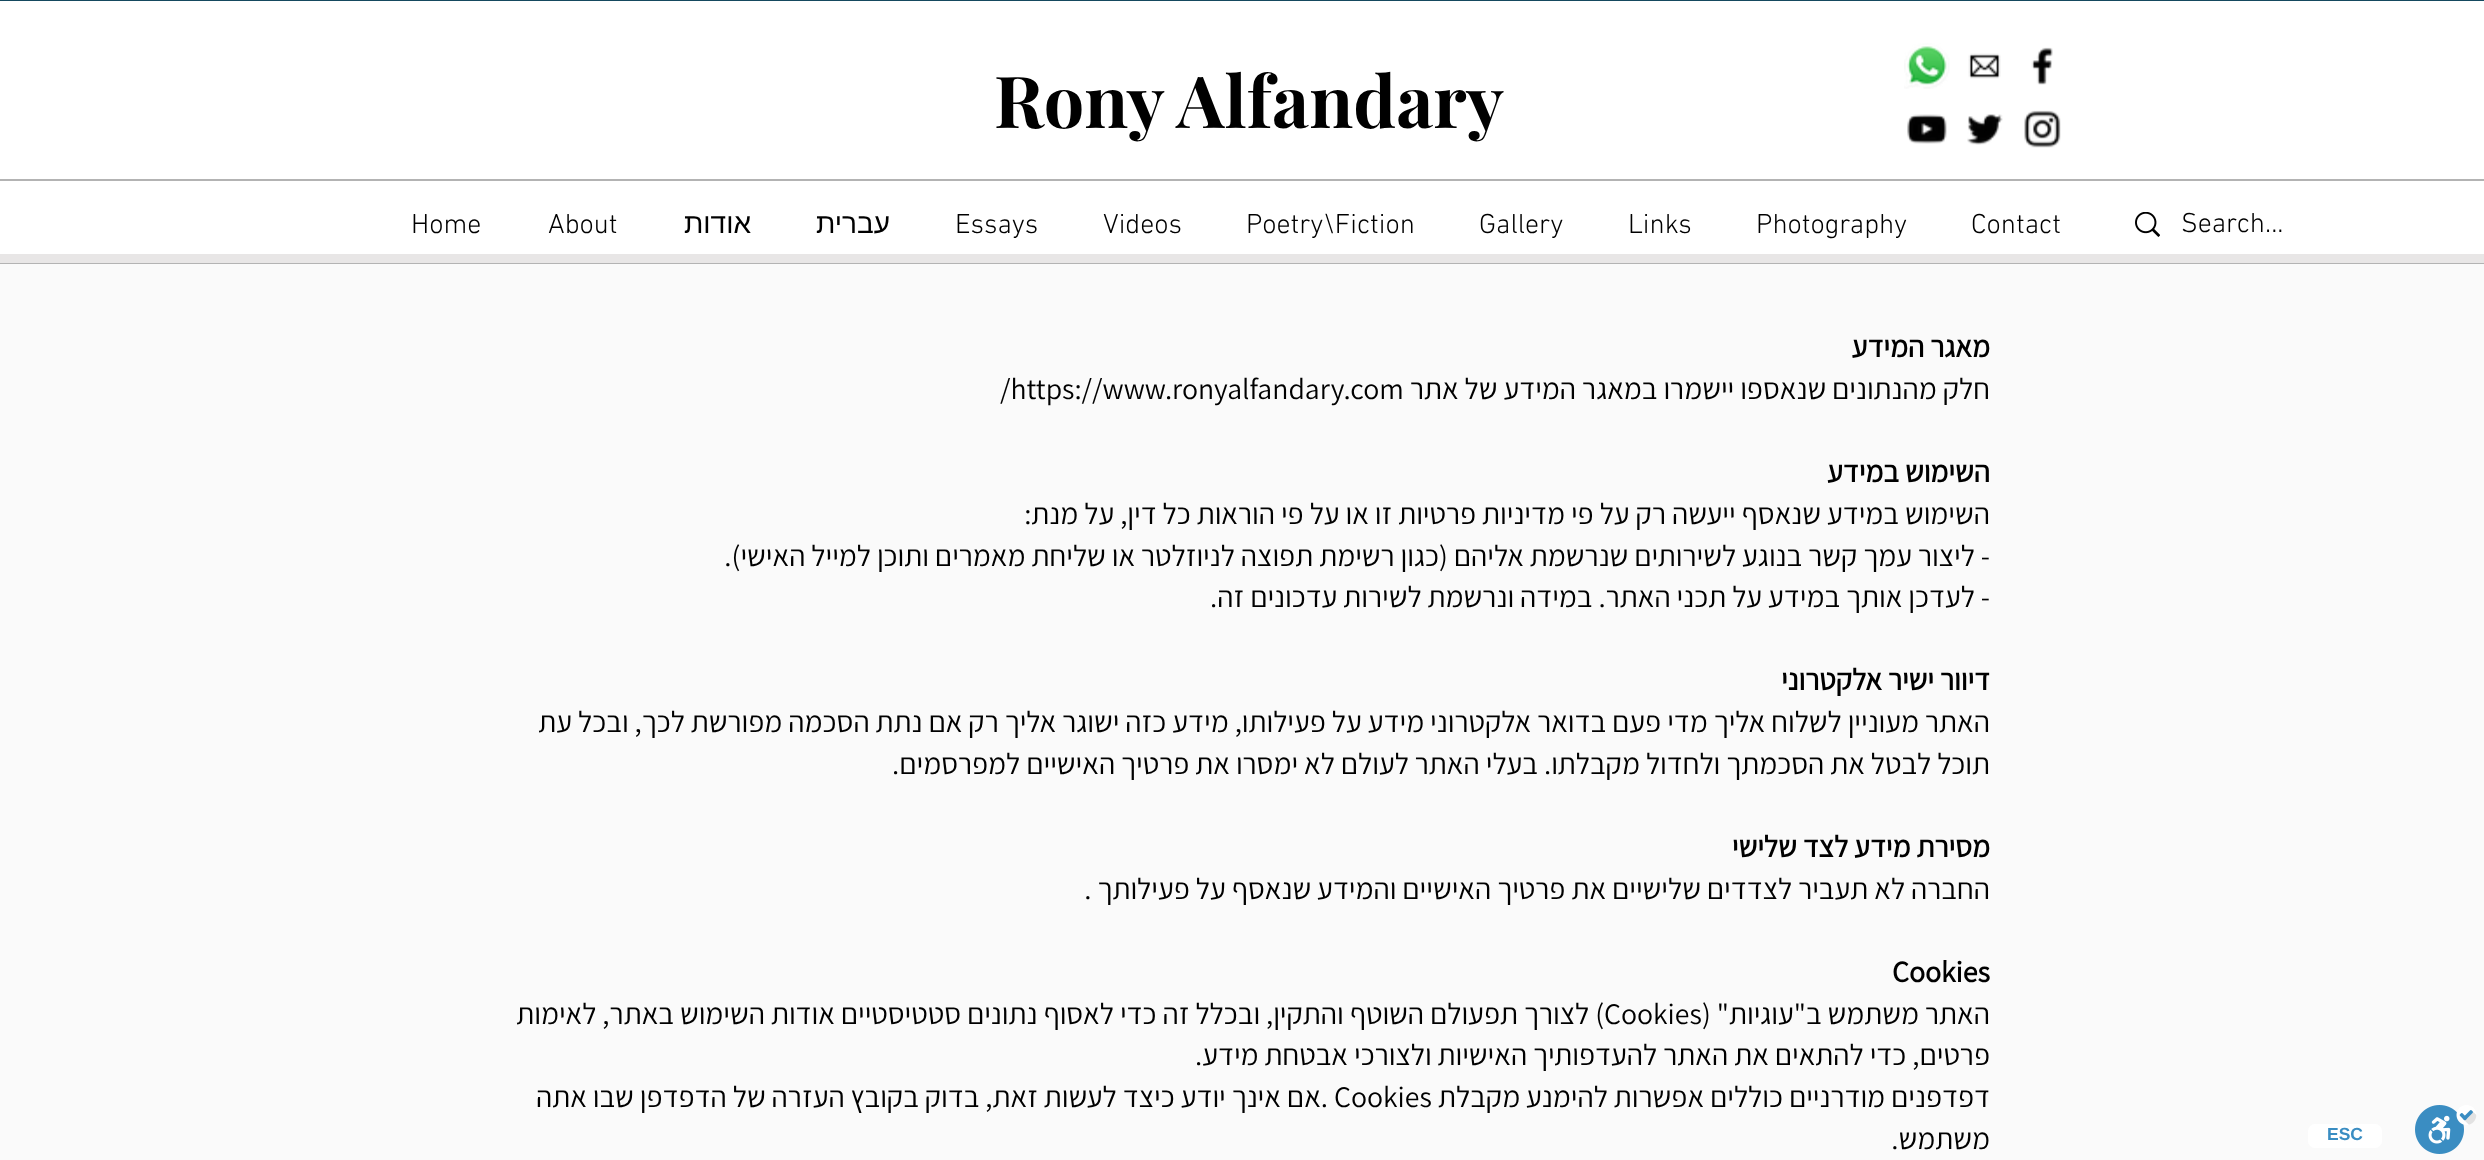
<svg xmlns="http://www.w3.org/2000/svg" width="2484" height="1160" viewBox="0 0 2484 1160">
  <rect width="100%" height="100%" fill="#fafafa"/>
  <rect x="0" y="0" width="2484" height="1" fill="#15495f"/>
  <image x="2415" y="1105" width="62" height="49" href="img1.png"/>
  <rect x="2308" y="1124" width="74" height="24" rx="7" fill="#ffffff"/>
  <text x="2327" y="1140" font-family="Liberation Sans" font-size="17.5" font-weight="bold" fill="#3a8dc2">ESC</text>
  <rect x="0" y="1" width="2484" height="253" fill="#ffffff"/>
  <rect x="0" y="263" width="2484" height="1" fill="#b3b3b3"/>
  <image x="2031" y="47" width="22" height="38" href="img2.png"/>
  <image x="1968" y="53" width="33" height="26" href="img3.png"/>
  <image x="1904" y="43" width="46" height="46" href="img4.png"/>
  <image x="2024" y="110" width="37" height="38" href="img5.png"/>
  <image x="1967" y="114" width="36" height="31" href="img6.png"/>
  <image x="1907" y="114" width="40" height="30" href="img7.png"/>
  <text x="994" y="128" font-family="Playfair Display" font-size="71.75" font-weight="bold" fill="#000000">Rony Alfandary</text>
  <rect x="0" y="179" width="2484" height="2" fill="#b3b3b3"/>
  <text x="2181" y="232" font-family="'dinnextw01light'" font-size="28" font-weight="300" fill="#000000">Search...</text>
  <image x="2135" y="212" width="25" height="25" href="img8.png"/>
  <text x="1971" y="233" font-family="'dinnextw01light'" font-size="28" font-weight="300" fill="#000000">Contact</text>
  <text x="1756" y="233" font-family="'dinnextw01light'" font-size="28" font-weight="300" fill="#000000">Photography</text>
  <text x="1628" y="233" font-family="'dinnextw01light'" font-size="28" font-weight="300" fill="#000000">Links</text>
  <text x="1479" y="233" font-family="'dinnextw01light'" font-size="28" font-weight="300" fill="#000000">Gallery</text>
  <text x="1246" y="233" font-family="'dinnextw01light'" font-size="28" font-weight="300" fill="#000000">Poetry\Fiction</text>
  <text x="1103" y="233" font-family="'dinnextw01light'" font-size="28" font-weight="300" fill="#000000">Videos</text>
  <text x="955" y="233" font-family="'dinnextw01light'" font-size="28" font-weight="300" fill="#000000">Essays</text>
  <text x="890" y="233" font-family="Liberation Sans" font-size="28" direction="rtl" fill="#000000">עברית</text>
  <text x="751" y="233" font-family="Liberation Sans" font-size="28" direction="rtl" fill="#000000">אודות</text>
  <text x="548" y="233" font-family="'dinnextw01light'" font-size="28" font-weight="300" fill="#000000">About</text>
  <text x="411" y="233" font-family="'dinnextw01light'" font-size="28" font-weight="300" fill="#000000">Home</text>
  <rect x="0" y="254" width="2484" height="9" fill="#e8e6e6"/>
  <text x="1990" y="357" font-family="Assistant" font-size="29.75" font-weight="bold" direction="rtl" fill="#000000">מאגר המידע</text>
  <text x="1990" y="399" font-family="Assistant" font-size="29.75" direction="rtl" fill="#000000">חלק מהנתונים שנאספו יישמרו במאגר המידע של אתר</text>
  <text x="1000" y="399" font-family="Assistant" font-size="29.75" fill="#000000">/https://www.ronyalfandary.com</text>
  <text x="1990" y="482" font-family="Assistant" font-size="29.75" font-weight="bold" direction="rtl" fill="#000000">השימוש במידע</text>
  <text x="1990" y="524" font-family="Assistant" font-size="29.75" direction="rtl" fill="#000000">השימוש במידע שנאסף ייעשה רק על פי מדיניות פרטיות זו או על פי הוראות כל דין, על מנת:</text>
  <text x="1990" y="566" font-family="Assistant" font-size="29.75" direction="rtl" fill="#000000">- ליצור עמך קשר בנוגע לשירותים שנרשמת אליהם (כגון רשימת תפוצה לניוזלטר או שליחת מאמרים ותוכן למייל האישי).</text>
  <text x="1990" y="607" font-family="Assistant" font-size="29.75" direction="rtl" fill="#000000">- לעדכן אותך במידע על תכני האתר. במידה ונרשמת לשירות עדכונים זה.</text>
  <text x="1990" y="690" font-family="Assistant" font-size="29.75" font-weight="bold" direction="rtl" fill="#000000">דיוור ישיר אלקטרוני</text>
  <text x="1990" y="732" font-family="Assistant" font-size="29.75" direction="rtl" fill="#000000">האתר מעוניין לשלוח אליך מדי פעם בדואר אלקטרוני מידע על פעילותו, מידע כזה ישוגר אליך רק אם נתת הסכמה מפורשת לכך, ובכל עת</text>
  <text x="1990" y="774" font-family="Assistant" font-size="29.75" direction="rtl" fill="#000000">תוכל לבטל את הסכמתך ולחדול מקבלתו. בעלי האתר לעולם לא ימסרו את פרטיך האישיים למפרסמים.</text>
  <text x="1990" y="857" font-family="Assistant" font-size="29.75" font-weight="bold" direction="rtl" fill="#000000">מסירת מידע לצד שלישי</text>
  <text x="1990" y="899" font-family="Assistant" font-size="29.75" direction="rtl" fill="#000000">החברה לא תעביר לצדדים שלישיים את פרטיך האישיים והמידע שנאסף על פעילותך .</text>
  <text x="1892" y="982" font-family="Assistant" font-size="29.75" font-weight="bold" fill="#000000">Cookies</text>
  <text x="1990" y="1024" font-family="Assistant" font-size="29.75" direction="rtl" fill="#000000">האתר משתמש ב"עוגיות" (</text>
  <text x="1604" y="1024" font-family="Assistant" font-size="29.75" fill="#000000">Cookies</text>
  <text x="1604" y="1024" font-family="Assistant" font-size="29.75" direction="rtl" fill="#000000">) לצורך תפעולם השוטף והתקין, ובכלל זה כדי לאסוף נתונים סטטיסטיים אודות השימוש באתר, לאימות</text>
  <text x="1990" y="1065" font-family="Assistant" font-size="29.75" direction="rtl" fill="#000000">פרטים, כדי להתאים את האתר להעדפותיך האישיות ולצורכי אבטחת מידע.</text>
  <text x="1990" y="1107" font-family="Assistant" font-size="29.75" direction="rtl" fill="#000000">דפדפנים מודרניים כוללים אפשרות להימנע מקבלת</text>
  <text x="1334" y="1107" font-family="Assistant" font-size="29.75" fill="#000000">Cookies</text>
  <text x="1328" y="1107" font-family="Assistant" font-size="29.75" direction="rtl" fill="#000000">.אם אינך יודע כיצד לעשות זאת, בדוק בקובץ העזרה של הדפדפן שבו אתה</text>
  <text x="1990" y="1149" font-family="Assistant" font-size="29.75" direction="rtl" fill="#000000">משתמש.</text>
</svg>
